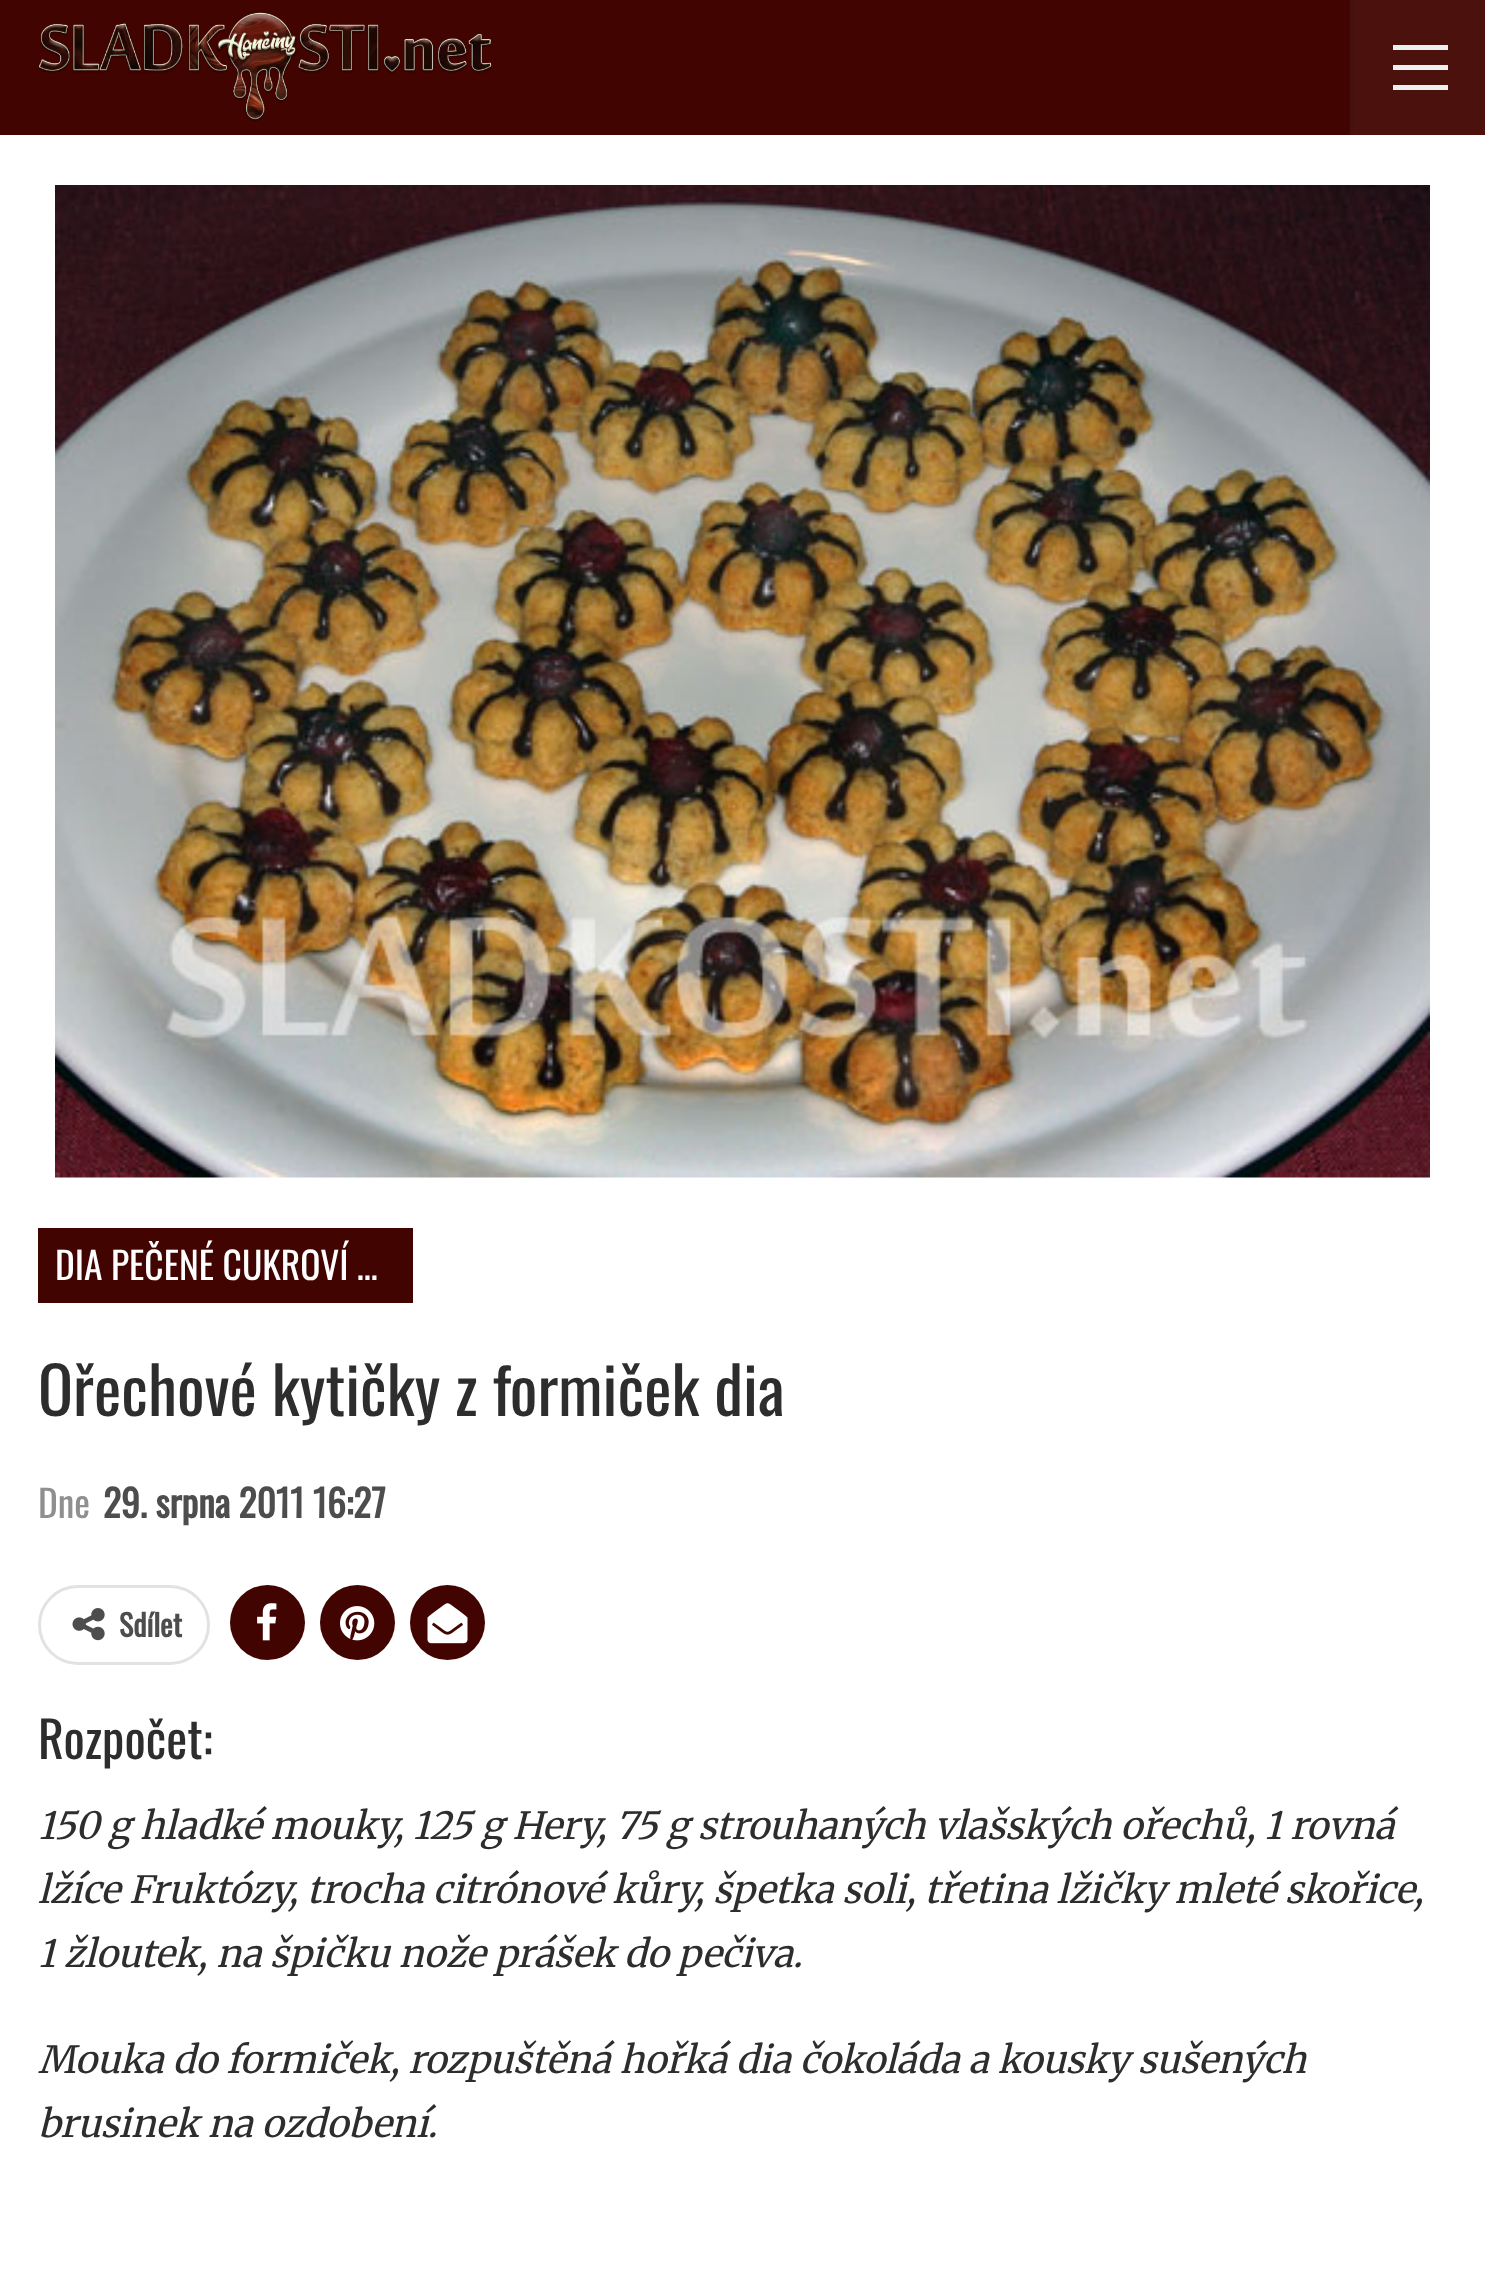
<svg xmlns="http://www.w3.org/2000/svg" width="1485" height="2275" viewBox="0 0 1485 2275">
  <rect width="100%" height="100%" fill="#ffffff"/>
  <rect x="0" y="0" width="1350" height="135" fill="#420400"/>
  <image x="38" y="12" width="454" height="110" href="img1.png"/>
  <rect x="1353" y="0" width="132" height="135" fill="#4b110d"/>
  <rect x="1350" y="0" width="3" height="135" fill="#46100c"/>
  <rect x="1393" y="65" width="55" height="5" fill="#ecf0f1"/>
  <rect x="1393" y="45" width="55" height="5" fill="#ecf0f1"/>
  <rect x="1393" y="85" width="55" height="5" fill="#ecf0f1"/>
  <image x="55" y="185" width="1375" height="993" href="img2.png"/>
  <rect x="38" y="1228" width="375" height="75" fill="#420400"/>
  <text x="55" y="1280" font-family="Oswald" font-size="37.5" fill="#ffffff">DIA PEČENÉ CUKROVÍ …</text>
  <text x="38" y="1416" font-family="Oswald" font-size="65" fill="#2d2d2d">Ořechové kytičky z formiček dia</text>
  <text x="38" y="1518" font-family="Oswald" font-size="37.5" fill="#8f8f8f">Dne</text>
  <text x="103" y="1518" font-family="Oswald" font-size="37.5" font-weight="bold" fill="#4d4d4d">29. srpna 2011 16:27</text>
  <rect x="39.5" y="1586.5" width="169" height="77" rx="38.5" fill="none" stroke="#e2e2e2" stroke-width="3"/>
  <image x="72" y="1608" width="33" height="33" href="img3.png"/>
  <text x="119" y="1637" font-family="Oswald" font-size="30" font-weight="bold" fill="#4d4d4d">Sdílet</text>
  <circle cx="267.5" cy="1622.5" r="37.5" fill="#420400"/>
  <image x="257" y="1603" width="20" height="38" href="img4.png"/>
  <circle cx="357.5" cy="1622.5" r="37.5" fill="#420400"/>
  <image x="340" y="1606" width="35" height="35" href="img5.png"/>
  <circle cx="447.5" cy="1622.5" r="37.5" fill="#420400"/>
  <image x="427" y="1603" width="41" height="41" href="img6.png"/>
  <text x="38" y="1759" font-family="Oswald" font-size="50" fill="#2d2d2d">Rozpočet:</text>
  <text x="38" y="1839" font-family="Merriweather" font-size="37.5" font-style="italic" fill="#2d2d2d">150 g hladké mouky, 125 g Hery, 75 g strouhaných vlašských ořechů, 1 rovná</text>
  <text x="38" y="1903" font-family="Merriweather" font-size="37.5" font-style="italic" fill="#2d2d2d">lžíce Fruktózy, trocha citrónové kůry, špetka soli, třetina lžičky mleté skořice,</text>
  <text x="38" y="1967" font-family="Merriweather" font-size="37.5" font-style="italic" fill="#2d2d2d">1 žloutek, na špičku nože prášek do pečiva.</text>
  <text x="38" y="2073" font-family="Merriweather" font-size="37.5" font-style="italic" fill="#2d2d2d">Mouka do formiček, rozpuštěná hořká dia čokoláda a kousky sušených</text>
  <text x="38" y="2137" font-family="Merriweather" font-size="37.5" font-style="italic" fill="#2d2d2d">brusinek na ozdobení.</text>
</svg>
